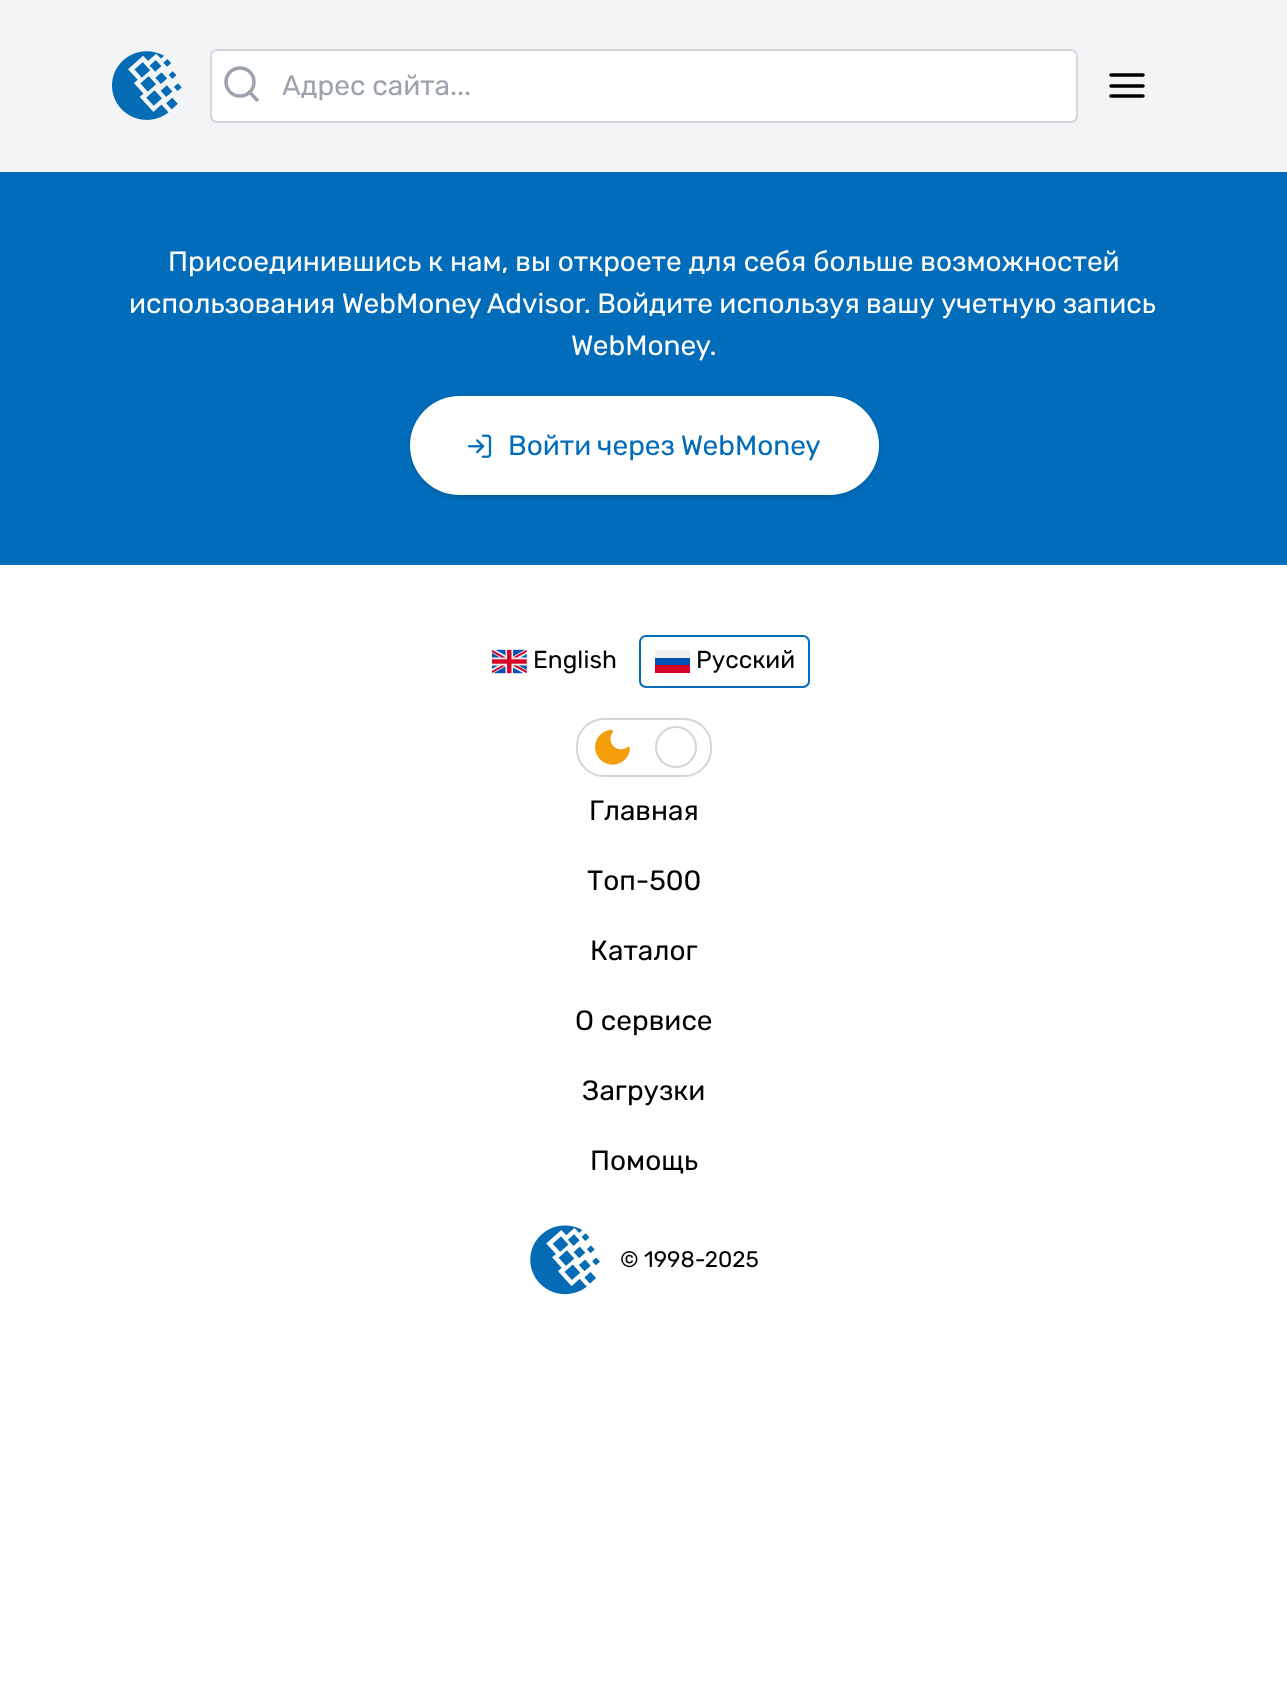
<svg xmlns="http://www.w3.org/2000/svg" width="1287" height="1698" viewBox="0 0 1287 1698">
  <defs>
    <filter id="blur1" x="-50%" y="-200%" width="200%" height="500%"><feGaussianBlur stdDeviation="2"/></filter>
    <filter id="blur2" x="-50%" y="-200%" width="200%" height="500%"><feGaussianBlur stdDeviation="2.5"/></filter>
  </defs>
  <rect width="100%" height="100%" fill="#ffffff"/>
  <rect x="0" y="0" width="1287" height="172" fill="#f3f4f6"/>
  <image x="112" y="51" width="70" height="69" href="img1.png"/>
  <rect x="211" y="50" width="866" height="72" rx="6" fill="#ffffff" stroke="#d1d5db" stroke-width="2"/>
  <circle cx="240" cy="82" r="14" fill="none" stroke="#9ca3af" stroke-width="3.5"/>
  <path d="M257 100L249.5 92" fill="none" stroke="#9ca3af" stroke-width="3.5" stroke-linecap="round" stroke-linejoin="round"/>
  <text x="282" y="95" font-family="Rubik" font-size="28" fill="#9ca3af">Адрес сайта...</text>
  <path d="M1111 86H1143M1111 75H1143M1111 96H1143" fill="none" stroke="#000000" stroke-width="3.5" stroke-linecap="round" stroke-linejoin="round"/>
  <rect x="0" y="172" width="1287" height="393" fill="#006cba"/>
  <text x="168" y="271" font-family="Rubik" font-size="28" fill="#ffffff">Присоединившись к нам, вы откроeте для себя больше возможностей</text>
  <text x="129" y="313" word-spacing="-0.5" font-family="Rubik" font-size="28" fill="#ffffff">использования WebMoney Advisor. Войдите используя вашу учетную запись</text>
  <text x="571" y="355" font-family="Rubik" font-size="28" fill="#ffffff">WebMoney.</text>
  <rect x="410" y="397" width="469" height="100" rx="50" fill="#000000" fill-opacity="0.06" filter="url(#blur1)"/>
  <rect x="410" y="397" width="469" height="100" rx="50" fill="#000000" fill-opacity="0.1" filter="url(#blur2)"/>
  <rect x="410" y="396" width="469" height="99" rx="49.5" fill="#ffffff"/>
  <image x="467" y="434" width="25" height="24" href="img2.png"/>
  <text x="508" y="455" word-spacing="-1" font-family="Rubik" font-size="28" fill="#006cba">Войти через WebMoney</text>
  <image x="492" y="649" width="35" height="25" href="img3.png"/>
  <text x="533" y="668" font-family="Rubik" font-size="24.5" fill="#000000">English</text>
  <rect x="640" y="636" width="169" height="51" rx="6" fill="none" stroke="#006cba" stroke-width="2"/>
  <rect x="655" y="658" width="35" height="7" fill="#0052b4"/>
  <rect x="655" y="650" width="35" height="8" fill="#f0f0f0"/>
  <rect x="655" y="665" width="35" height="8" fill="#d80027"/>
  <text x="696" y="668" font-family="Rubik" font-size="24.5" fill="#000000">Русский</text>
  <rect x="577" y="719" width="134" height="57" rx="27" fill="none" stroke="#d1d5db" stroke-width="2"/>
  <image x="655" y="726" width="42" height="42" href="img4.png"/>
  <image x="595" y="729" width="35" height="36" href="img5.png"/>
  <circle cx="676" cy="747" r="20" fill="#ffffff" stroke="#d1d5db" stroke-width="2"/>
  <text x="589" y="820" font-family="Rubik" font-size="28" fill="#000000">Главная</text>
  <text x="587" y="890" font-family="Rubik" font-size="28" fill="#000000">Топ-500</text>
  <text x="590" y="960" font-family="Rubik" font-size="28" fill="#000000">Каталог</text>
  <text x="575" y="1030" font-family="Rubik" font-size="28" fill="#000000">О сервисе</text>
  <text x="582" y="1100" font-family="Rubik" font-size="28" fill="#000000">Загрузки</text>
  <text x="590" y="1170" font-family="Rubik" font-size="28" fill="#000000">Помощь</text>
  <image x="530" y="1225" width="70" height="70" href="img6.png"/>
  <text x="620" y="1267" font-family="Rubik" font-size="22.5" fill="#000000">© 1998-2025</text>
</svg>
